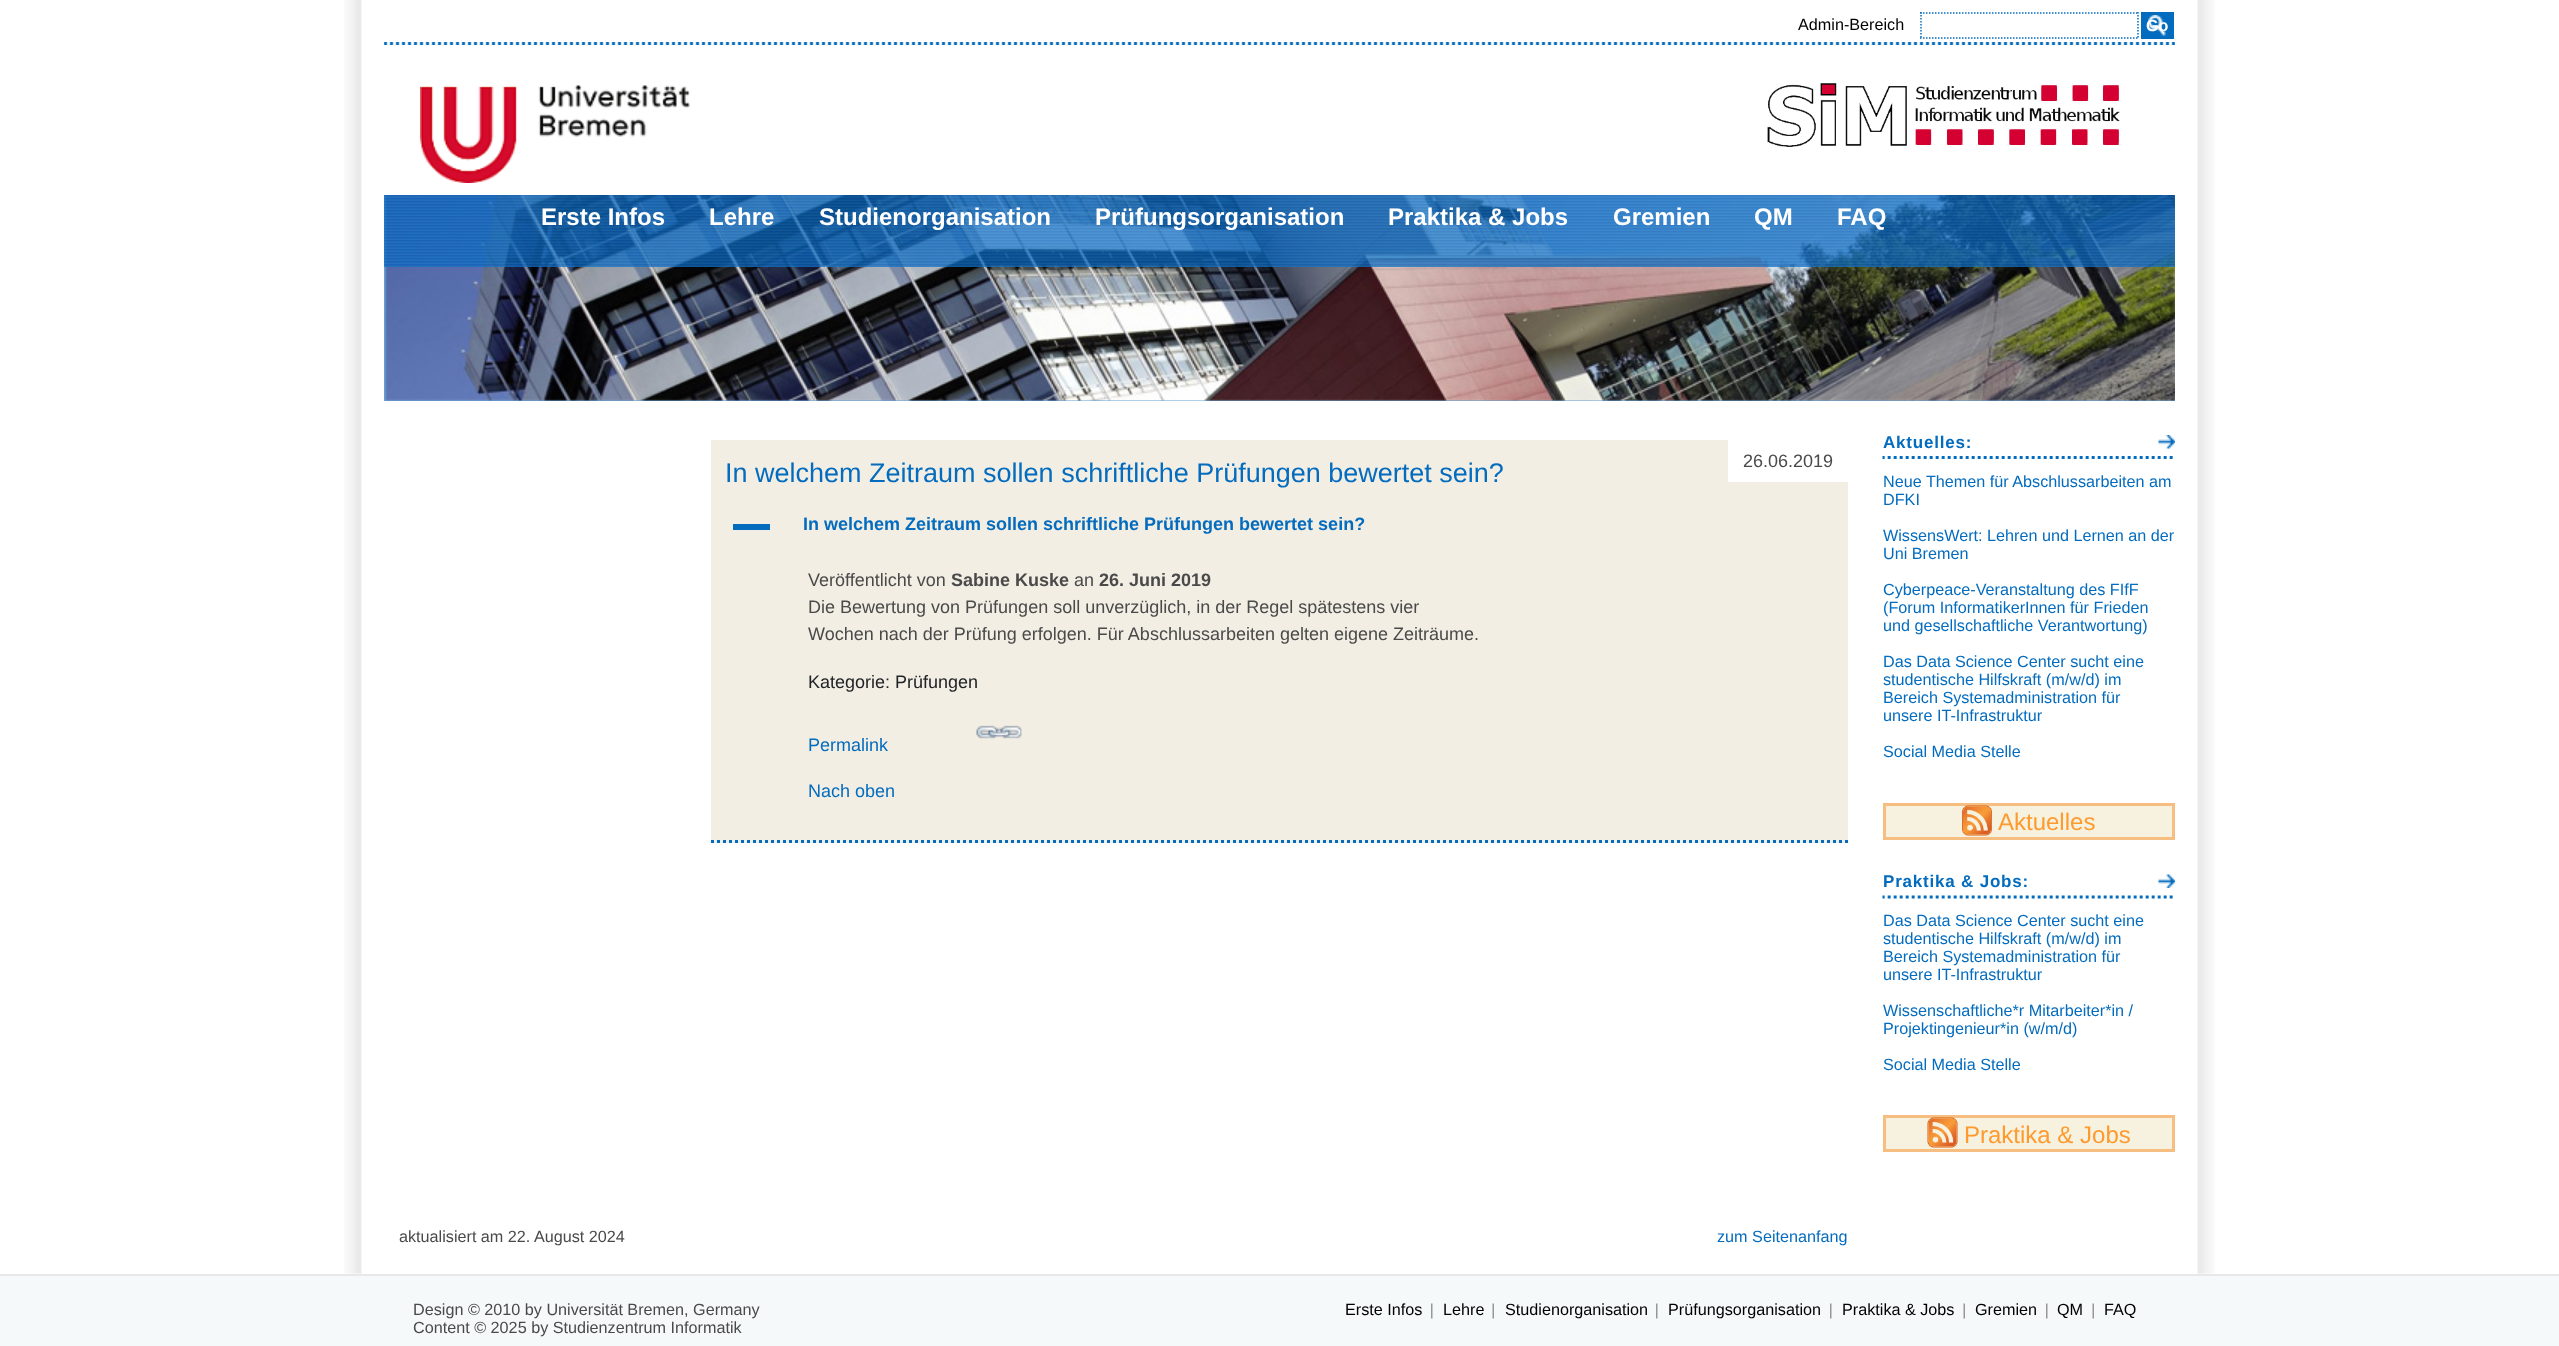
<svg xmlns="http://www.w3.org/2000/svg" width="2559" height="1346" viewBox="0 0 2559 1346">
  <rect width="100%" height="100%" fill="#ffffff"/>
  <image x="344" y="0" width="18" height="1274" href="img1.png"/>
  <image x="2197" y="0" width="18" height="1274" href="img2.png"/>
  <image x="384" y="42" width="1791" height="3" href="img3.png"/>
  <text x="1798" y="30" font-family="Liberation Sans" font-size="16.2" fill="#000000">Admin-Bereich</text>
  <path d="M1920 13H2139" fill="none" stroke="#046cbe" stroke-width="1.5" stroke-dasharray="1.5 1.5"/>
  <path d="M2138 12V39" fill="none" stroke="#046cbe" stroke-width="1.5" stroke-dasharray="1.5 1.5"/>
  <path d="M1920 38H2139" fill="none" stroke="#046cbe" stroke-width="1.5" stroke-dasharray="1.5 1.5"/>
  <path d="M1921 12V39" fill="none" stroke="#046cbe" stroke-width="1.5" stroke-dasharray="1.5 1.5"/>
  <rect x="2141" y="12" width="33" height="27" fill="#046cbe"/>
  <image x="2148" y="15" width="18" height="21" href="img4.png"/>
  <text x="2146" y="31" font-family="Liberation Sans" font-size="16.2" font-weight="bold" fill="#ffffff">Go</text>
  <image x="420" y="85" width="270" height="98" href="img5.png"/>
  <image x="1767" y="83" width="353" height="64" href="img6.png"/>
  <rect x="384" y="195" width="1791" height="206" fill="#62a1d6"/>
  <image x="385" y="195" width="1790" height="206" href="img7.png"/>
  <image x="384" y="195" width="1791" height="72" href="img8.png"/>
  <text x="541" y="225" font-family="Liberation Sans" font-size="24" font-weight="bold" fill="#ffffff">Erste Infos</text>
  <text x="709" y="225" font-family="Liberation Sans" font-size="24" font-weight="bold" fill="#ffffff">Lehre</text>
  <text x="819" y="225" font-family="Liberation Sans" font-size="24" font-weight="bold" fill="#ffffff">Studienorganisation</text>
  <text x="1095" y="225" font-family="Liberation Sans" font-size="24" font-weight="bold" fill="#ffffff">Prüfungsorganisation</text>
  <text x="1388" y="225" font-family="Liberation Sans" font-size="24" font-weight="bold" fill="#ffffff">Praktika &amp; Jobs</text>
  <text x="1613" y="225" font-family="Liberation Sans" font-size="24" font-weight="bold" fill="#ffffff">Gremien</text>
  <text x="1754" y="225" font-family="Liberation Sans" font-size="24" font-weight="bold" fill="#ffffff">QM</text>
  <text x="1837" y="225" font-family="Liberation Sans" font-size="24" font-weight="bold" fill="#ffffff">FAQ</text>
  <rect x="711" y="440" width="1137" height="403" fill="#f3eee4"/>
  <path d="M711 841.5H1848" fill="none" stroke="#046cbe" stroke-width="3" stroke-dasharray="3 3"/>
  <text x="725" y="482" font-family="Liberation Sans" font-size="27" fill="#046cbe">In welchem Zeitraum sollen schriftliche Prüfungen bewertet sein?</text>
  <rect x="1728" y="440" width="120" height="42" fill="#ffffff"/>
  <text x="1743" y="467" font-family="Liberation Sans" font-size="18" fill="#4a4a4a">26.06.2019</text>
  <rect x="733" y="524" width="37" height="6" fill="#046cbe"/>
  <text x="803" y="530" font-family="Liberation Sans" font-size="18" font-weight="bold" fill="#046cbe">In welchem Zeitraum sollen schriftliche Prüfungen bewertet sein?</text>
  <text x="808" y="586" font-family="Liberation Sans" font-size="18" fill="#4a4a4a">Veröffentlicht von</text>
  <text x="951" y="586" font-family="Liberation Sans" font-size="18" font-weight="bold" fill="#4a4a4a">Sabine Kuske</text>
  <text x="1074" y="586" font-family="Liberation Sans" font-size="18" fill="#4a4a4a">an</text>
  <text x="1099" y="586" font-family="Liberation Sans" font-size="18" font-weight="bold" fill="#4a4a4a">26. Juni 2019</text>
  <text x="808" y="613" font-family="Liberation Sans" font-size="18" fill="#4a4a4a">Die Bewertung von Prüfungen soll unverzüglich, in der Regel spätestens vier</text>
  <text x="808" y="640" font-family="Liberation Sans" font-size="18" fill="#4a4a4a">Wochen nach der Prüfung erfolgen. Für Abschlussarbeiten gelten eigene Zeiträume.</text>
  <text x="808" y="688" font-family="Liberation Sans" font-size="18" fill="#212427">Kategorie: Prüfungen</text>
  <image x="976" y="725" width="46" height="14" href="img9.png"/>
  <text x="808" y="751" font-family="Liberation Sans" font-size="18" fill="#046cbe">Permalink</text>
  <text x="808" y="797" font-family="Liberation Sans" font-size="18" fill="#046cbe">Nach oben</text>
  <text x="399" y="1242" font-family="Liberation Sans" font-size="16.2" fill="#4a4a4a">aktualisiert am 22. August 2024</text>
  <text x="1717" y="1242" font-family="Liberation Sans" font-size="16.2" fill="#046cbe">zum Seitenanfang</text>
  <image x="1882" y="456" width="291" height="3" href="img10.png"/>
  <image x="2158" y="435" width="17" height="14" href="img11.png"/>
  <text x="1883" y="448" font-family="Liberation Sans" font-size="17" font-weight="bold" letter-spacing="0.8" fill="#046cbe">Aktuelles:</text>
  <text x="1883" y="487" font-family="Liberation Sans" font-size="16.2" fill="#046cbe">Neue Themen für Abschlussarbeiten am</text>
  <text x="1883" y="505" font-family="Liberation Sans" font-size="16.2" fill="#046cbe">DFKI</text>
  <text x="1883" y="541" font-family="Liberation Sans" font-size="16.2" fill="#046cbe">WissensWert: Lehren und Lernen an der</text>
  <text x="1883" y="559" font-family="Liberation Sans" font-size="16.2" fill="#046cbe">Uni Bremen</text>
  <text x="1883" y="595" font-family="Liberation Sans" font-size="16.2" fill="#046cbe">Cyberpeace-Veranstaltung des FIfF</text>
  <text x="1883" y="613" font-family="Liberation Sans" font-size="16.2" fill="#046cbe">(Forum InformatikerInnen für Frieden</text>
  <text x="1883" y="631" font-family="Liberation Sans" font-size="16.2" fill="#046cbe">und gesellschaftliche Verantwortung)</text>
  <text x="1883" y="667" font-family="Liberation Sans" font-size="16.2" fill="#046cbe">Das Data Science Center sucht eine</text>
  <text x="1883" y="685" font-family="Liberation Sans" font-size="16.2" fill="#046cbe">studentische Hilfskraft (m/w/d) im</text>
  <text x="1883" y="703" font-family="Liberation Sans" font-size="16.2" fill="#046cbe">Bereich Systemadministration für</text>
  <text x="1883" y="721" font-family="Liberation Sans" font-size="16.2" fill="#046cbe">unsere IT-Infrastruktur</text>
  <text x="1883" y="757" font-family="Liberation Sans" font-size="16.2" fill="#046cbe">Social Media Stelle</text>
  <rect x="1884.5" y="804.5" width="289" height="34" fill="#f7f2e0" stroke="#f7be81" stroke-width="3"/>
  <image x="1962" y="805" width="30" height="31" href="img12.png"/>
  <text x="1998" y="830" font-family="Liberation Sans" font-size="24" fill="#fe9a2e">Aktuelles</text>
  <image x="1882" y="895" width="291" height="4" href="img13.png"/>
  <image x="2158" y="874" width="17" height="14" href="img14.png"/>
  <text x="1883" y="887" font-family="Liberation Sans" font-size="17" font-weight="bold" letter-spacing="0.8" fill="#046cbe">Praktika &amp; Jobs:</text>
  <text x="1883" y="926" font-family="Liberation Sans" font-size="16.2" fill="#046cbe">Das Data Science Center sucht eine</text>
  <text x="1883" y="944" font-family="Liberation Sans" font-size="16.2" fill="#046cbe">studentische Hilfskraft (m/w/d) im</text>
  <text x="1883" y="962" font-family="Liberation Sans" font-size="16.2" fill="#046cbe">Bereich Systemadministration für</text>
  <text x="1883" y="980" font-family="Liberation Sans" font-size="16.2" fill="#046cbe">unsere IT-Infrastruktur</text>
  <text x="1883" y="1016" font-family="Liberation Sans" font-size="16.2" fill="#046cbe">Wissenschaftliche*r Mitarbeiter*in /</text>
  <text x="1883" y="1034" font-family="Liberation Sans" font-size="16.2" fill="#046cbe">Projektingenieur*in (w/m/d)</text>
  <text x="1883" y="1070" font-family="Liberation Sans" font-size="16.2" fill="#046cbe">Social Media Stelle</text>
  <rect x="1884.5" y="1116.5" width="289" height="34" fill="#f7f2e0" stroke="#f7be81" stroke-width="3"/>
  <image x="1927" y="1117" width="31" height="31" href="img15.png"/>
  <text x="1964" y="1143" font-family="Liberation Sans" font-size="24" fill="#fe9a2e">Praktika &amp; Jobs</text>
  <rect x="0" y="1276" width="2559" height="70" fill="#f5f9fa"/>
  <rect x="0" y="1274" width="2559" height="2" fill="#e8e8e8"/>
  <text x="413" y="1315" font-family="Liberation Sans" font-size="16.2" fill="#4a4a4a">Design © 2010 by Universität Bremen, Germany</text>
  <text x="413" y="1333" font-family="Liberation Sans" font-size="16.2" fill="#4a4a4a">Content © 2025 by Studienzentrum Informatik</text>
  <text x="1345" y="1315" font-family="Liberation Sans" font-size="16.2" fill="#000000">Erste Infos</text>
  <image x="1431" y="1303" width="2" height="16" href="img16.png"/>
  <text x="1443" y="1315" font-family="Liberation Sans" font-size="16.2" fill="#000000">Lehre</text>
  <image x="1492" y="1303" width="2" height="16" href="img17.png"/>
  <text x="1505" y="1315" font-family="Liberation Sans" font-size="16.2" fill="#000000">Studienorganisation</text>
  <image x="1656" y="1303" width="2" height="16" href="img16.png"/>
  <text x="1668" y="1315" font-family="Liberation Sans" font-size="16.2" fill="#000000">Prüfungsorganisation</text>
  <image x="1830" y="1303" width="2" height="16" href="img16.png"/>
  <text x="1842" y="1315" font-family="Liberation Sans" font-size="16.2" fill="#000000">Praktika &amp; Jobs</text>
  <image x="1963" y="1303" width="2" height="16" href="img17.png"/>
  <text x="1975" y="1315" font-family="Liberation Sans" font-size="16.2" fill="#000000">Gremien</text>
  <image x="2046" y="1303" width="2" height="16" href="img16.png"/>
  <text x="2057" y="1315" font-family="Liberation Sans" font-size="16.2" fill="#000000">QM</text>
  <image x="2092" y="1303" width="2" height="16" href="img17.png"/>
  <text x="2104" y="1315" font-family="Liberation Sans" font-size="16.2" fill="#000000">FAQ</text>
</svg>
